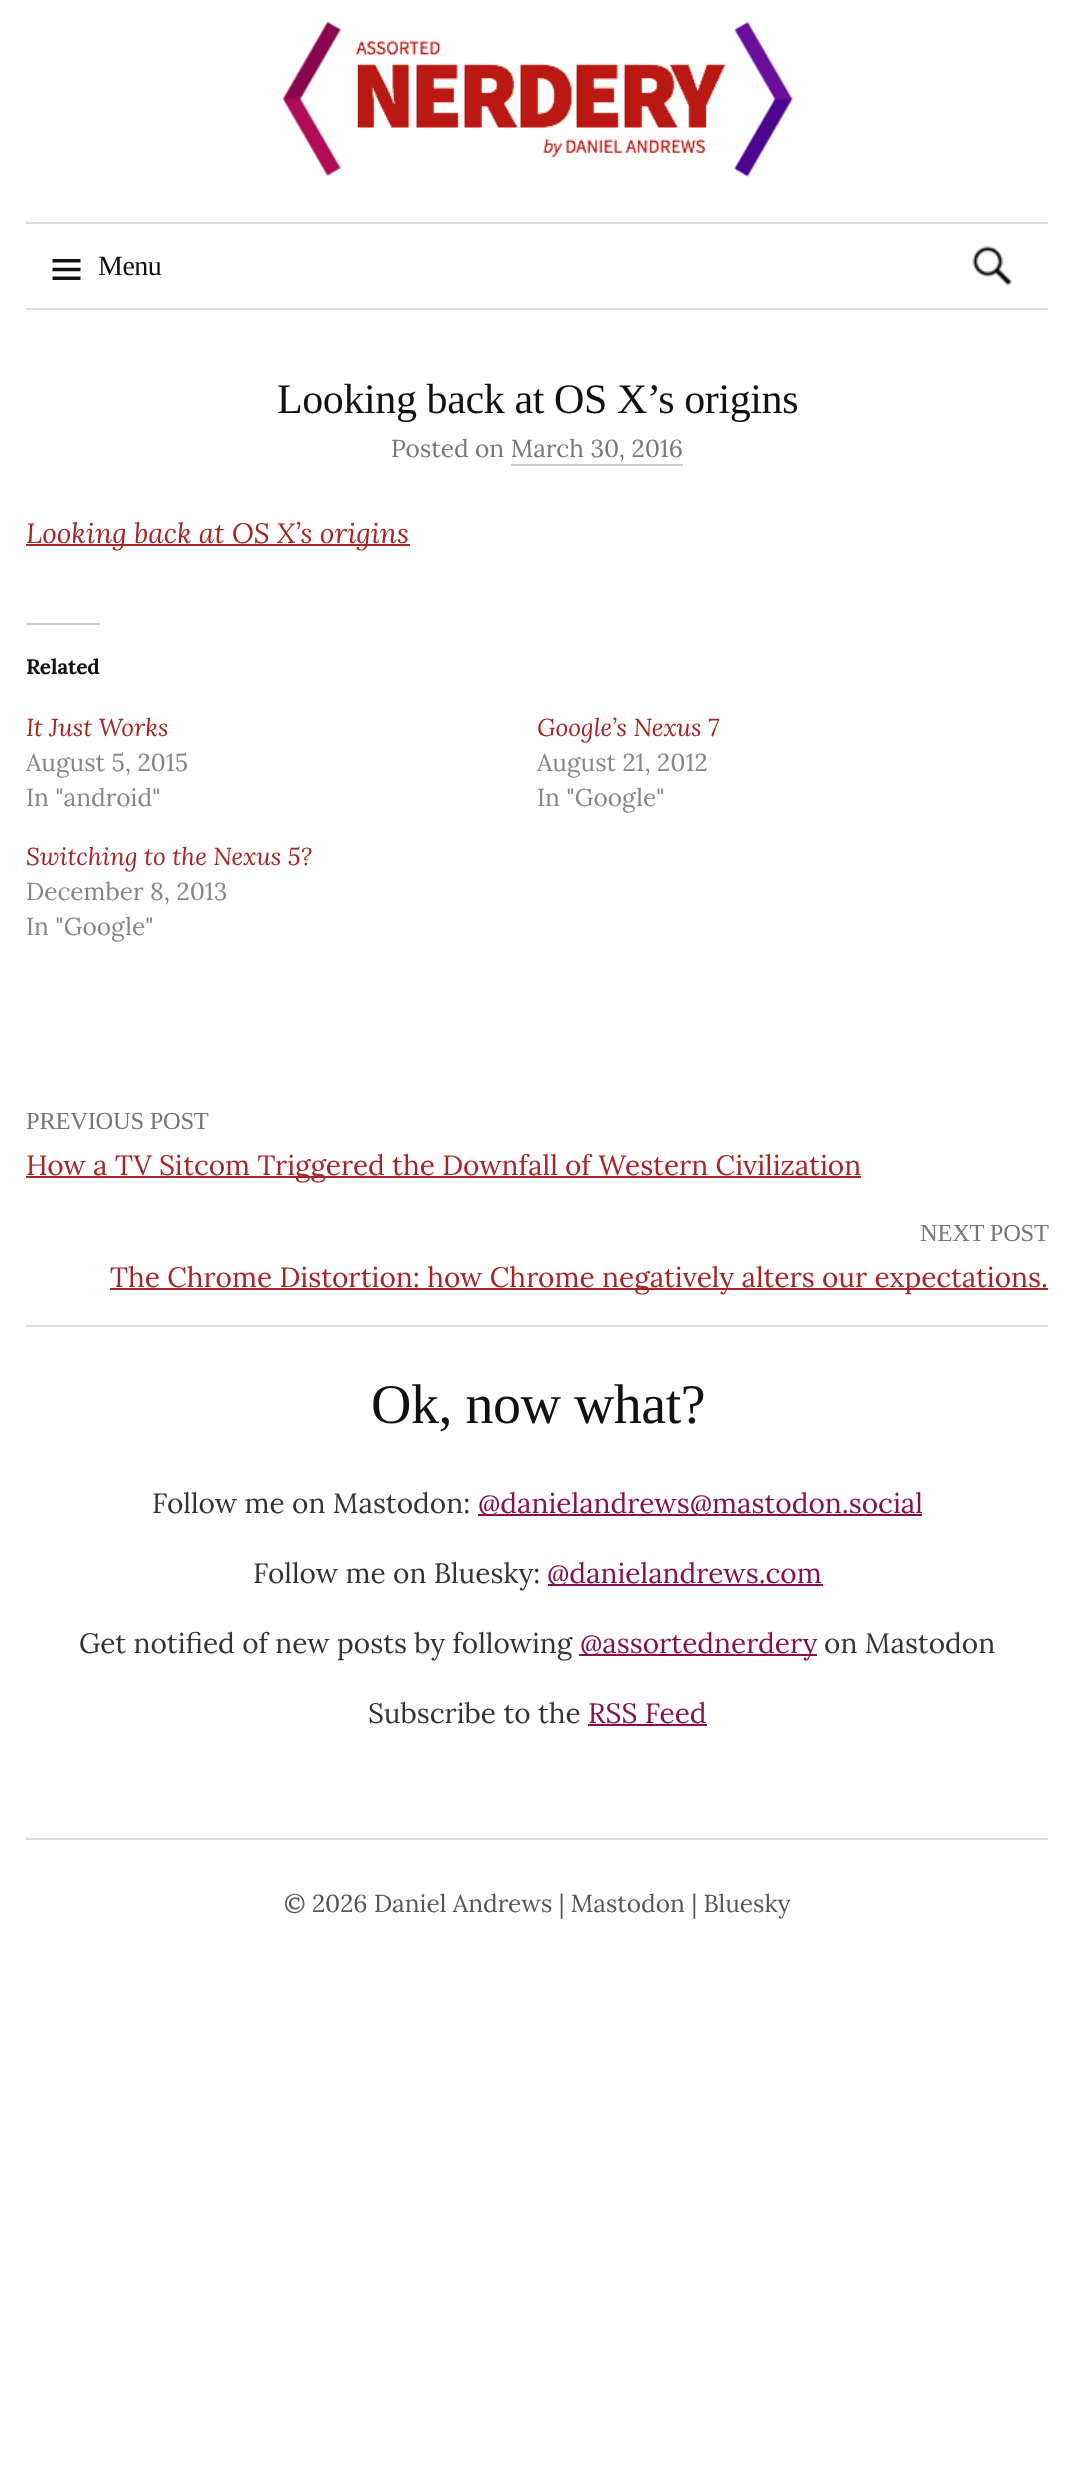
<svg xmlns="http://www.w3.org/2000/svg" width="1074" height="2469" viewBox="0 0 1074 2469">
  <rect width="100%" height="100%" fill="#ffffff"/>
  <image x="283" y="21" width="510" height="156" href="img1.png"/>
  <rect x="26" y="308" width="1022" height="2" fill="#dddddd"/>
  <rect x="26" y="222" width="1022" height="2" fill="#dddddd"/>
  <image x="52" y="259" width="29" height="21" href="img2.png"/>
  <text x="98" y="275" font-family="Liberation Serif" font-size="28" letter-spacing="-0.5" fill="#111111">Menu</text>
  <image x="972" y="246" width="40" height="40" href="img3.png"/>
  <text x="277" y="413" font-family="Liberation Serif" font-size="42" letter-spacing="-0.4" fill="#111111">Looking back at OS X’s origins</text>
  <text x="391" y="457" font-family="Lora" font-size="24.5" fill="#777777">Posted on March 30, 2016</text>
  <rect x="511" y="464" width="172" height="2" fill="#cccccc"/>
  <rect x="26" y="544" width="384" height="2" fill="#a62425"/>
  <text x="26" y="543" font-family="Lora" font-size="28" font-style="italic" fill="#a62425">Looking back at OS X’s origins</text>
  <rect x="26" y="623" width="74" height="2" fill="#cccccc"/>
  <text x="26" y="674" font-family="Lora" font-size="21" font-weight="bold" letter-spacing="-0.25" fill="#111111">Related</text>
  <text x="26" y="736" font-family="Lora" font-size="24.5" font-style="italic" fill="#a62425">It Just Works</text>
  <text x="26" y="771" font-family="Lora" font-size="24.5" fill="#858585">August 5, 2015</text>
  <text x="26" y="806" font-family="Lora" font-size="24.5" fill="#858585">In "android"</text>
  <text x="537" y="736" font-family="Lora" font-size="24.5" font-style="italic" fill="#a62425">Google’s Nexus 7</text>
  <text x="537" y="771" font-family="Lora" font-size="24.5" fill="#858585">August 21, 2012</text>
  <text x="537" y="806" font-family="Lora" font-size="24.5" fill="#858585">In "Google"</text>
  <text x="26" y="865" font-family="Lora" font-size="24.5" font-style="italic" fill="#a62425">Switching to the Nexus 5?</text>
  <text x="26" y="900" font-family="Lora" font-size="24.5" fill="#858585">December 8, 2013</text>
  <text x="26" y="935" font-family="Lora" font-size="24.5" fill="#858585">In "Google"</text>
  <text x="26" y="1129" font-family="Liberation Serif" font-size="24.5" letter-spacing="-0.25" fill="#777777">PREVIOUS POST</text>
  <rect x="26" y="1176" width="835" height="2" fill="#a62425"/>
  <text x="26" y="1175" font-family="Lora" font-size="28" fill="#a62425">How a TV Sitcom Triggered the Downfall of Western Civilization</text>
  <text x="920" y="1241" font-family="Liberation Serif" font-size="24.5" letter-spacing="-0.25" fill="#777777">NEXT POST</text>
  <rect x="110" y="1288" width="938" height="2" fill="#a62425"/>
  <text x="110" y="1287" font-family="Lora" font-size="28" fill="#a62425">The Chrome Distortion: how Chrome negatively alters our expectations.</text>
  <rect x="26" y="1325" width="1022" height="2" fill="#dddddd"/>
  <text x="371" y="1423" font-family="Liberation Serif" font-size="56" letter-spacing="-0.5" fill="#111111">Ok, now what?</text>
  <text x="152" y="1513" font-family="Lora" font-size="28" fill="#333333">Follow me on Mastodon:</text>
  <rect x="478" y="1514" width="444" height="2" fill="#880e4e"/>
  <text x="478" y="1513" font-family="Lora" font-size="28" fill="#880e4e">@danielandrews@mastodon.social</text>
  <text x="253" y="1583" font-family="Lora" font-size="28" fill="#333333">Follow me on Bluesky:</text>
  <rect x="548" y="1584" width="275" height="2" fill="#880e4e"/>
  <text x="547" y="1583" font-family="Lora" font-size="28" fill="#880e4e">@danielandrews.com</text>
  <text x="79" y="1653" font-family="Lora" font-size="28" fill="#333333">Get notified of new posts by following</text>
  <rect x="579" y="1654" width="238" height="2" fill="#880e4e"/>
  <text x="580" y="1653" font-family="Lora" font-size="28" fill="#880e4e">@assortednerdery</text>
  <text x="824" y="1653" font-family="Lora" font-size="28" fill="#333333">on Mastodon</text>
  <text x="368" y="1723" font-family="Lora" font-size="28" fill="#333333">Subscribe to the</text>
  <text x="588" y="1723" font-family="Lora" font-size="28" fill="#880e4e">RSS Feed</text>
  <rect x="588" y="1724" width="119" height="2" fill="#880e4e"/>
  <rect x="26" y="1838" width="1022" height="2" fill="#dddddd"/>
  <text x="284" y="1912" font-family="Lora" font-size="24.5" fill="#555555">© 2026 Daniel Andrews | Mastodon | Bluesky</text>
</svg>
